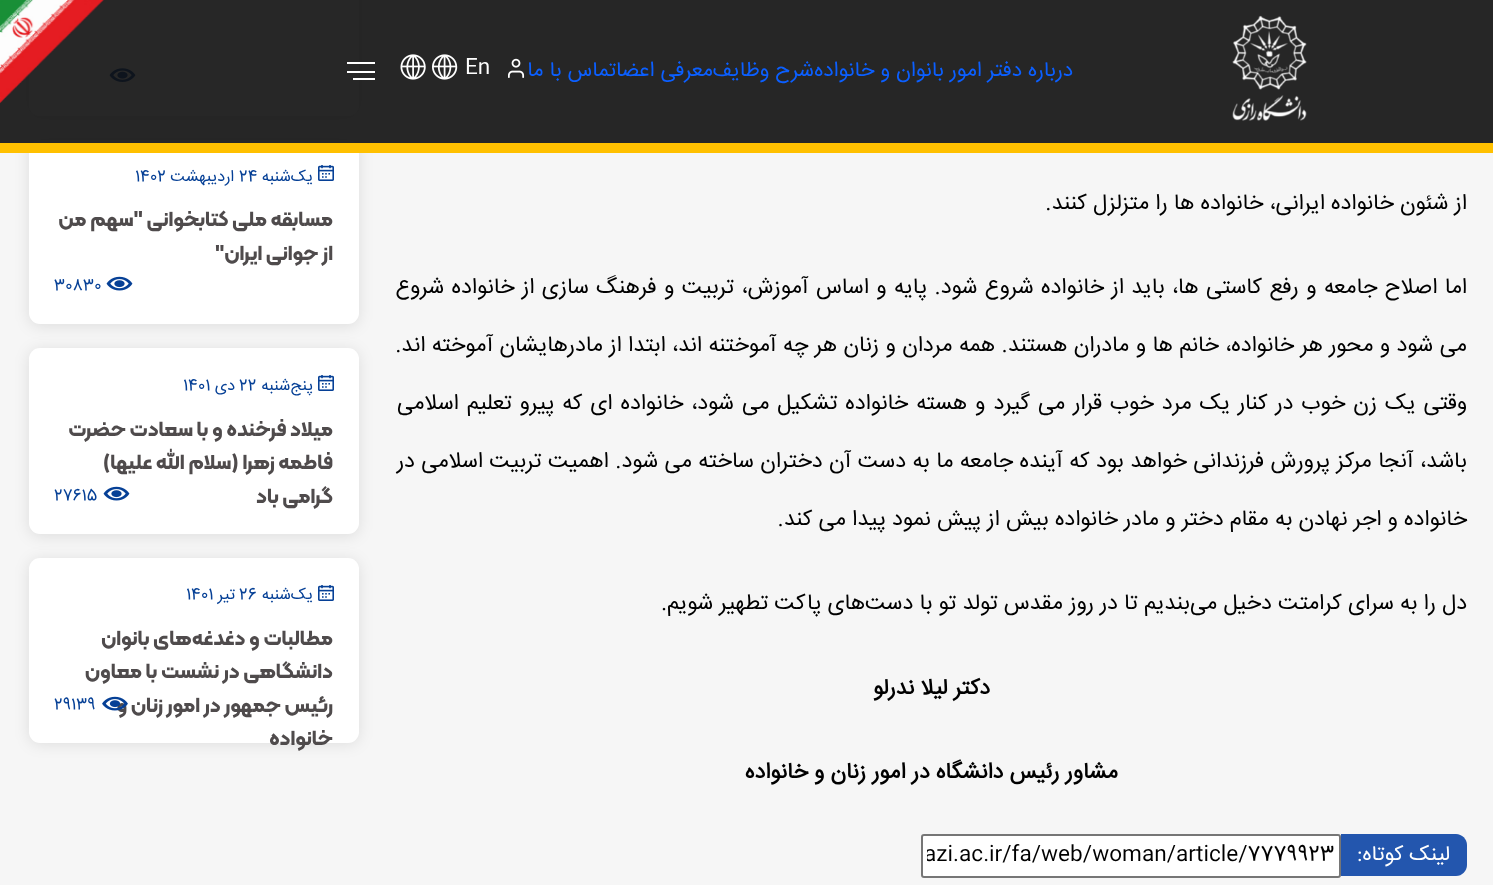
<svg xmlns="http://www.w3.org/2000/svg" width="1493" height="885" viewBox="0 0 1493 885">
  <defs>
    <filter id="blur1" x="-50%" y="-200%" width="200%" height="500%"><feGaussianBlur stdDeviation="7.5"/></filter>
    <clipPath id="clip1"><rect x="927" y="839" width="408" height="34"/></clipPath>
  </defs>
  <rect width="100%" height="100%" fill="#f6f6f6"/>
  <rect x="29" y="-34" width="330" height="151" rx="11" fill="#000000" fill-opacity="0.1" filter="url(#blur1)"/>
  <rect x="29" y="-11" width="330" height="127" rx="11" fill="#ffffff"/>
  <image x="109" y="68" width="27" height="14" href="img6.png"/>
  <rect x="29" y="141" width="330" height="185" rx="11" fill="#000000" fill-opacity="0.1" filter="url(#blur1)"/>
  <rect x="29" y="140" width="330" height="184" rx="11" fill="#ffffff"/>
  <rect x="0" y="0" width="1493" height="143" fill="#0f0f0f" fill-opacity="0.9"/>
  <image x="0" y="0" width="104" height="104" href="img1.png"/>
  <rect x="0" y="143" width="1493" height="10" fill="#ffc000"/>
  <image x="1232" y="15" width="75" height="106" href="img2.png"/>
  <text x="1073" y="76" font-family="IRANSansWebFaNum" font-size="21" direction="rtl" fill="#0b5fff">درباره دفتر امور بانوان و خانواده</text>
  <text x="814" y="76" font-family="IRANSansWebFaNum" font-size="21" direction="rtl" fill="#0b5fff">شرح وظایف</text>
  <text x="713" y="76" font-family="IRANSansWebFaNum" font-size="21" direction="rtl" fill="#0b5fff">معرفی اعضا</text>
  <text x="616" y="76" font-family="IRANSansWebFaNum" font-size="21" direction="rtl" fill="#0b5fff">تماس با ما</text>
  <image x="508" y="58" width="17" height="20" href="img3.png"/>
  <text x="465" y="73" font-family="IRANSansWebFaNum" font-size="21" fill="#ffffff">En</text>
  <image x="432" y="54" width="26" height="26" href="img4.png"/>
  <image x="400" y="54" width="26" height="26" href="img5.png"/>
  <rect x="347" y="62" width="28" height="2" fill="#ffffff"/>
  <rect x="347" y="71" width="28" height="2" fill="#ffffff"/>
  <rect x="353" y="78" width="22" height="2" fill="#ffffff"/>
  <text x="1467" y="209" font-family="IRANSansWebFaNum" font-size="22" direction="rtl" fill="#000000">از شئون خانواده ایرانی، خانواده ها را متزلزل کنند.</text>
  <text x="1467" y="293" word-spacing="1.25" font-family="IRANSansWebFaNum" font-size="22" direction="rtl" fill="#000000">اما اصلاح جامعه و رفع کاستی ها، باید از خانواده شروع شود. پایه و اساس آموزش، تربیت و فرهنگ سازی از خانواده شروع</text>
  <text x="1467" y="351" word-spacing="0.2" font-family="IRANSansWebFaNum" font-size="22" direction="rtl" fill="#000000">می شود و محور هر خانواده، خانم ها و مادران هستند. همه مردان و زنان هر چه آموختنه اند، ابتدا از مادرهایشان آموخته اند.</text>
  <text x="1467" y="409" word-spacing="1.75" font-family="IRANSansWebFaNum" font-size="22" direction="rtl" fill="#000000">وقتی یک زن خوب در کنار یک مرد خوب قرار می گیرد و هسته خانواده تشکیل می شود، خانواده ای که پیرو تعلیم اسلامی</text>
  <text x="1467" y="467" word-spacing="0.25" font-family="IRANSansWebFaNum" font-size="22" direction="rtl" fill="#000000">باشد، آنجا مرکز پرورش فرزندانی خواهد بود که آینده جامعه ما به دست آن دختران ساخته می شود. اهمیت تربیت اسلامی در</text>
  <text x="1467" y="525" font-family="IRANSansWebFaNum" font-size="22" direction="rtl" fill="#000000">خانواده و اجر نهادن به مقام دختر و مادر خانواده بیش از پیش نمود پیدا می کند.</text>
  <text x="1467" y="609" font-family="IRANSansWebFaNum" font-size="22" direction="rtl" fill="#000000">دل را به سرای کرامتت دخیل می‌بندیم تا در روز مقدس تولد تو با دست‌های پاکت تطهیر شویم</text>
  <text x="661" y="609" font-family="IRANSansWebFaNum" font-size="22" fill="#000000">.</text>
  <text x="990" y="694" font-family="IRANSansWebFaNum" font-size="22" font-weight="bold" direction="rtl" fill="#000000">دکتر لیلا ندرلو</text>
  <text x="1118" y="778" font-family="IRANSansWebFaNum" font-size="22" font-weight="bold" direction="rtl" fill="#000000">مشاور رئیس دانشگاه در امور زنان و خانواده</text>
  <path d="M1341 834H1456C1462 834 1467 839 1467 845V865C1467 871 1462 876 1456 876H1341Z" fill="#2356ae"/>
  <text x="1450" y="860" font-family="IRANSansWebFaNum" font-size="21" direction="rtl" fill="#ffffff">لینک کوتاه:</text>
  <rect x="922" y="835" width="418" height="42" rx="2" fill="#ffffff" stroke="#767676" stroke-width="2"/>
  <g clip-path="url(#clip1)">
    <text x="924" y="860" font-family="IRANSansWebFaNum" font-size="21" fill="#000000">azi.ac.ir/fa/web/woman/article/7779923</text>
  </g>
  <image x="318" y="165" width="16" height="16" href="img7.png"/>
  <text x="313" y="181" font-family="IRANSansWebFaNum" font-size="16" direction="rtl" fill="#064096">یک‌شنبه</text>
  <text x="239" y="181" font-family="IRANSansWebFaNum" font-size="16" fill="#064096">24</text>
  <text x="234" y="181" font-family="IRANSansWebFaNum" font-size="16" direction="rtl" fill="#064096">اردیبهشت</text>
  <text x="135" y="181" font-family="IRANSansWebFaNum" font-size="16" fill="#064096">1402</text>
  <text x="333" y="226" font-family="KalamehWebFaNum" font-size="21" font-weight="bold" direction="rtl" fill="#4f4b4c">مسابقه ملی کتابخوانی "سهم من</text>
  <text x="333" y="260" font-family="KalamehWebFaNum" font-size="21" font-weight="bold" direction="rtl" fill="#4f4b4c">از جوانی ایران"</text>
  <image x="106" y="276" width="27" height="15" href="img8.png"/>
  <text x="54" y="290" font-family="IRANSansWebFaNum" font-size="16" fill="#064096">30830</text>
  <rect x="29" y="350" width="330" height="186" rx="11" fill="#000000" fill-opacity="0.1" filter="url(#blur1)"/>
  <rect x="29" y="348" width="330" height="186" rx="11" fill="#ffffff"/>
  <image x="318" y="375" width="16" height="16" href="img7.png"/>
  <text x="313" y="390" font-family="IRANSansWebFaNum" font-size="16" direction="rtl" fill="#064096">پنج‌شنبه</text>
  <text x="239" y="390" font-family="IRANSansWebFaNum" font-size="16" fill="#064096">22</text>
  <text x="235" y="390" font-family="IRANSansWebFaNum" font-size="16" direction="rtl" fill="#064096">دی</text>
  <text x="183" y="390" font-family="IRANSansWebFaNum" font-size="16" fill="#064096">1401</text>
  <text x="333" y="436" font-family="KalamehWebFaNum" font-size="21" font-weight="bold" direction="rtl" fill="#4f4b4c">میلاد فرخنده و با سعادت حضرت</text>
  <text x="333" y="469" font-family="KalamehWebFaNum" font-size="21" font-weight="bold" direction="rtl" fill="#4f4b4c">فاطمه زهرا (سلام الله علیها)</text>
  <text x="333" y="503" font-family="KalamehWebFaNum" font-size="21" font-weight="bold" direction="rtl" fill="#4f4b4c">گرامی باد</text>
  <image x="103" y="486" width="27" height="15" href="img8.png"/>
  <text x="54" y="500" font-family="IRANSansWebFaNum" font-size="16" fill="#064096">27615</text>
  <rect x="29" y="560" width="330" height="184" rx="11" fill="#000000" fill-opacity="0.1" filter="url(#blur1)"/>
  <rect x="29" y="558" width="330" height="185" rx="11" fill="#ffffff"/>
  <image x="318" y="585" width="16" height="16" href="img7.png"/>
  <text x="313" y="599" font-family="IRANSansWebFaNum" font-size="16" direction="rtl" fill="#064096">یک‌شنبه</text>
  <text x="239" y="599" font-family="IRANSansWebFaNum" font-size="16" fill="#064096">26</text>
  <text x="235" y="599" font-family="IRANSansWebFaNum" font-size="16" direction="rtl" fill="#064096">تیر</text>
  <text x="186" y="599" font-family="IRANSansWebFaNum" font-size="16" fill="#064096">1401</text>
  <text x="333" y="645" font-family="KalamehWebFaNum" font-size="21" font-weight="bold" direction="rtl" fill="#4f4b4c">مطالبات و دغدغه‌های بانوان</text>
  <text x="333" y="678" font-family="KalamehWebFaNum" font-size="21" font-weight="bold" direction="rtl" fill="#4f4b4c">دانشگاهی در نشست با معاون</text>
  <text x="333" y="712" font-family="KalamehWebFaNum" font-size="21" font-weight="bold" direction="rtl" fill="#4f4b4c">رئیس جمهور در امور زنان و</text>
  <text x="333" y="745" font-family="KalamehWebFaNum" font-size="21" font-weight="bold" direction="rtl" fill="#4f4b4c">خانواده</text>
  <image x="102" y="696" width="26" height="15" href="img9.png"/>
  <text x="54" y="709" font-family="IRANSansWebFaNum" font-size="16" fill="#064096">29139</text>
</svg>
